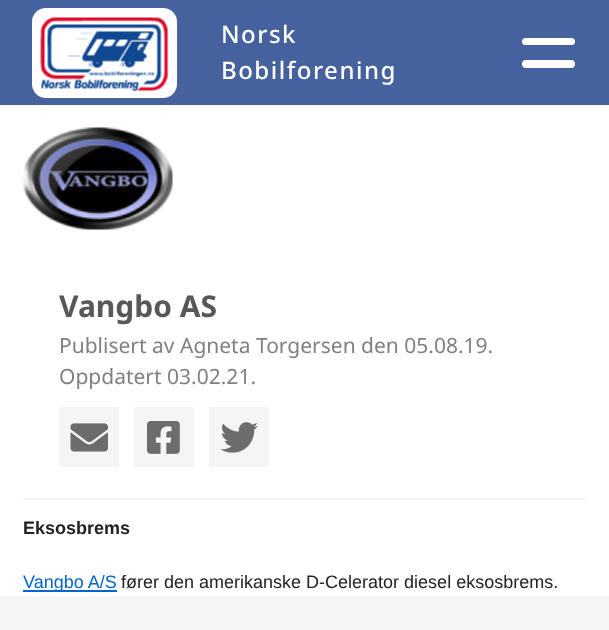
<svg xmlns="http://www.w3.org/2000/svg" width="609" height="630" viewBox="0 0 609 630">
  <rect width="100%" height="100%" fill="#ffffff"/>
  <rect x="0" y="0" width="609" height="105" fill="#46629e"/>
  <rect x="32" y="8" width="145" height="90" rx="14" fill="#ffffff"/>
  <image x="40" y="17" width="129" height="75" href="img1.png"/>
  <text x="221" y="43" font-family="Noto Sans" font-size="24" font-weight="500" letter-spacing="1.5" fill="#ffffff">Norsk</text>
  <text x="221" y="79" font-family="Noto Sans" font-size="24" font-weight="500" letter-spacing="1.5" fill="#ffffff">Bobilforening</text>
  <rect x="522" y="38" width="53" height="7" rx="3.5" fill="#ffffff"/>
  <rect x="522" y="60" width="53" height="8" rx="4" fill="#ffffff"/>
  <image x="22" y="127" width="151" height="103" href="img2.png"/>
  <rect x="23" y="498" width="564" height="2" fill="#f5f5f5"/>
  <text x="59" y="317" font-family="Noto Sans" font-size="30" font-weight="bold" fill="#585858">Vangbo AS</text>
  <text x="59" y="353" font-family="Noto Sans" font-size="21" fill="#808080">Publisert av Agneta Torgersen den 05.08.19.</text>
  <text x="59" y="384" font-family="Noto Sans" font-size="21" fill="#808080">Oppdatert 03.02.21.</text>
  <rect x="59" y="407" width="60" height="60" fill="#f5f5f5"/>
  <image x="70" y="423" width="38" height="29" href="img3.png"/>
  <rect x="134" y="407" width="60" height="60" fill="#f5f5f5"/>
  <image x="147" y="421" width="33" height="33" href="img4.png"/>
  <rect x="209" y="407" width="60" height="60" fill="#f5f5f5"/>
  <image x="220" y="422" width="38" height="31" href="img5.png"/>
  <text x="23" y="534" font-family="Liberation Sans" font-size="18" font-weight="bold" fill="#222222">Eksosbrems</text>
  <rect x="23" y="590" width="94" height="2" fill="#0066cc"/>
  <text x="23" y="588" font-family="Liberation Sans" font-size="18" fill="#0066cc">Vangbo A/S</text>
  <text x="121" y="588" font-family="Liberation Sans" font-size="18" fill="#222222">fører den amerikanske D-Celerator diesel eksosbrems.</text>
  <rect x="0" y="596" width="609" height="34" fill="#f5f5f5"/>
</svg>
